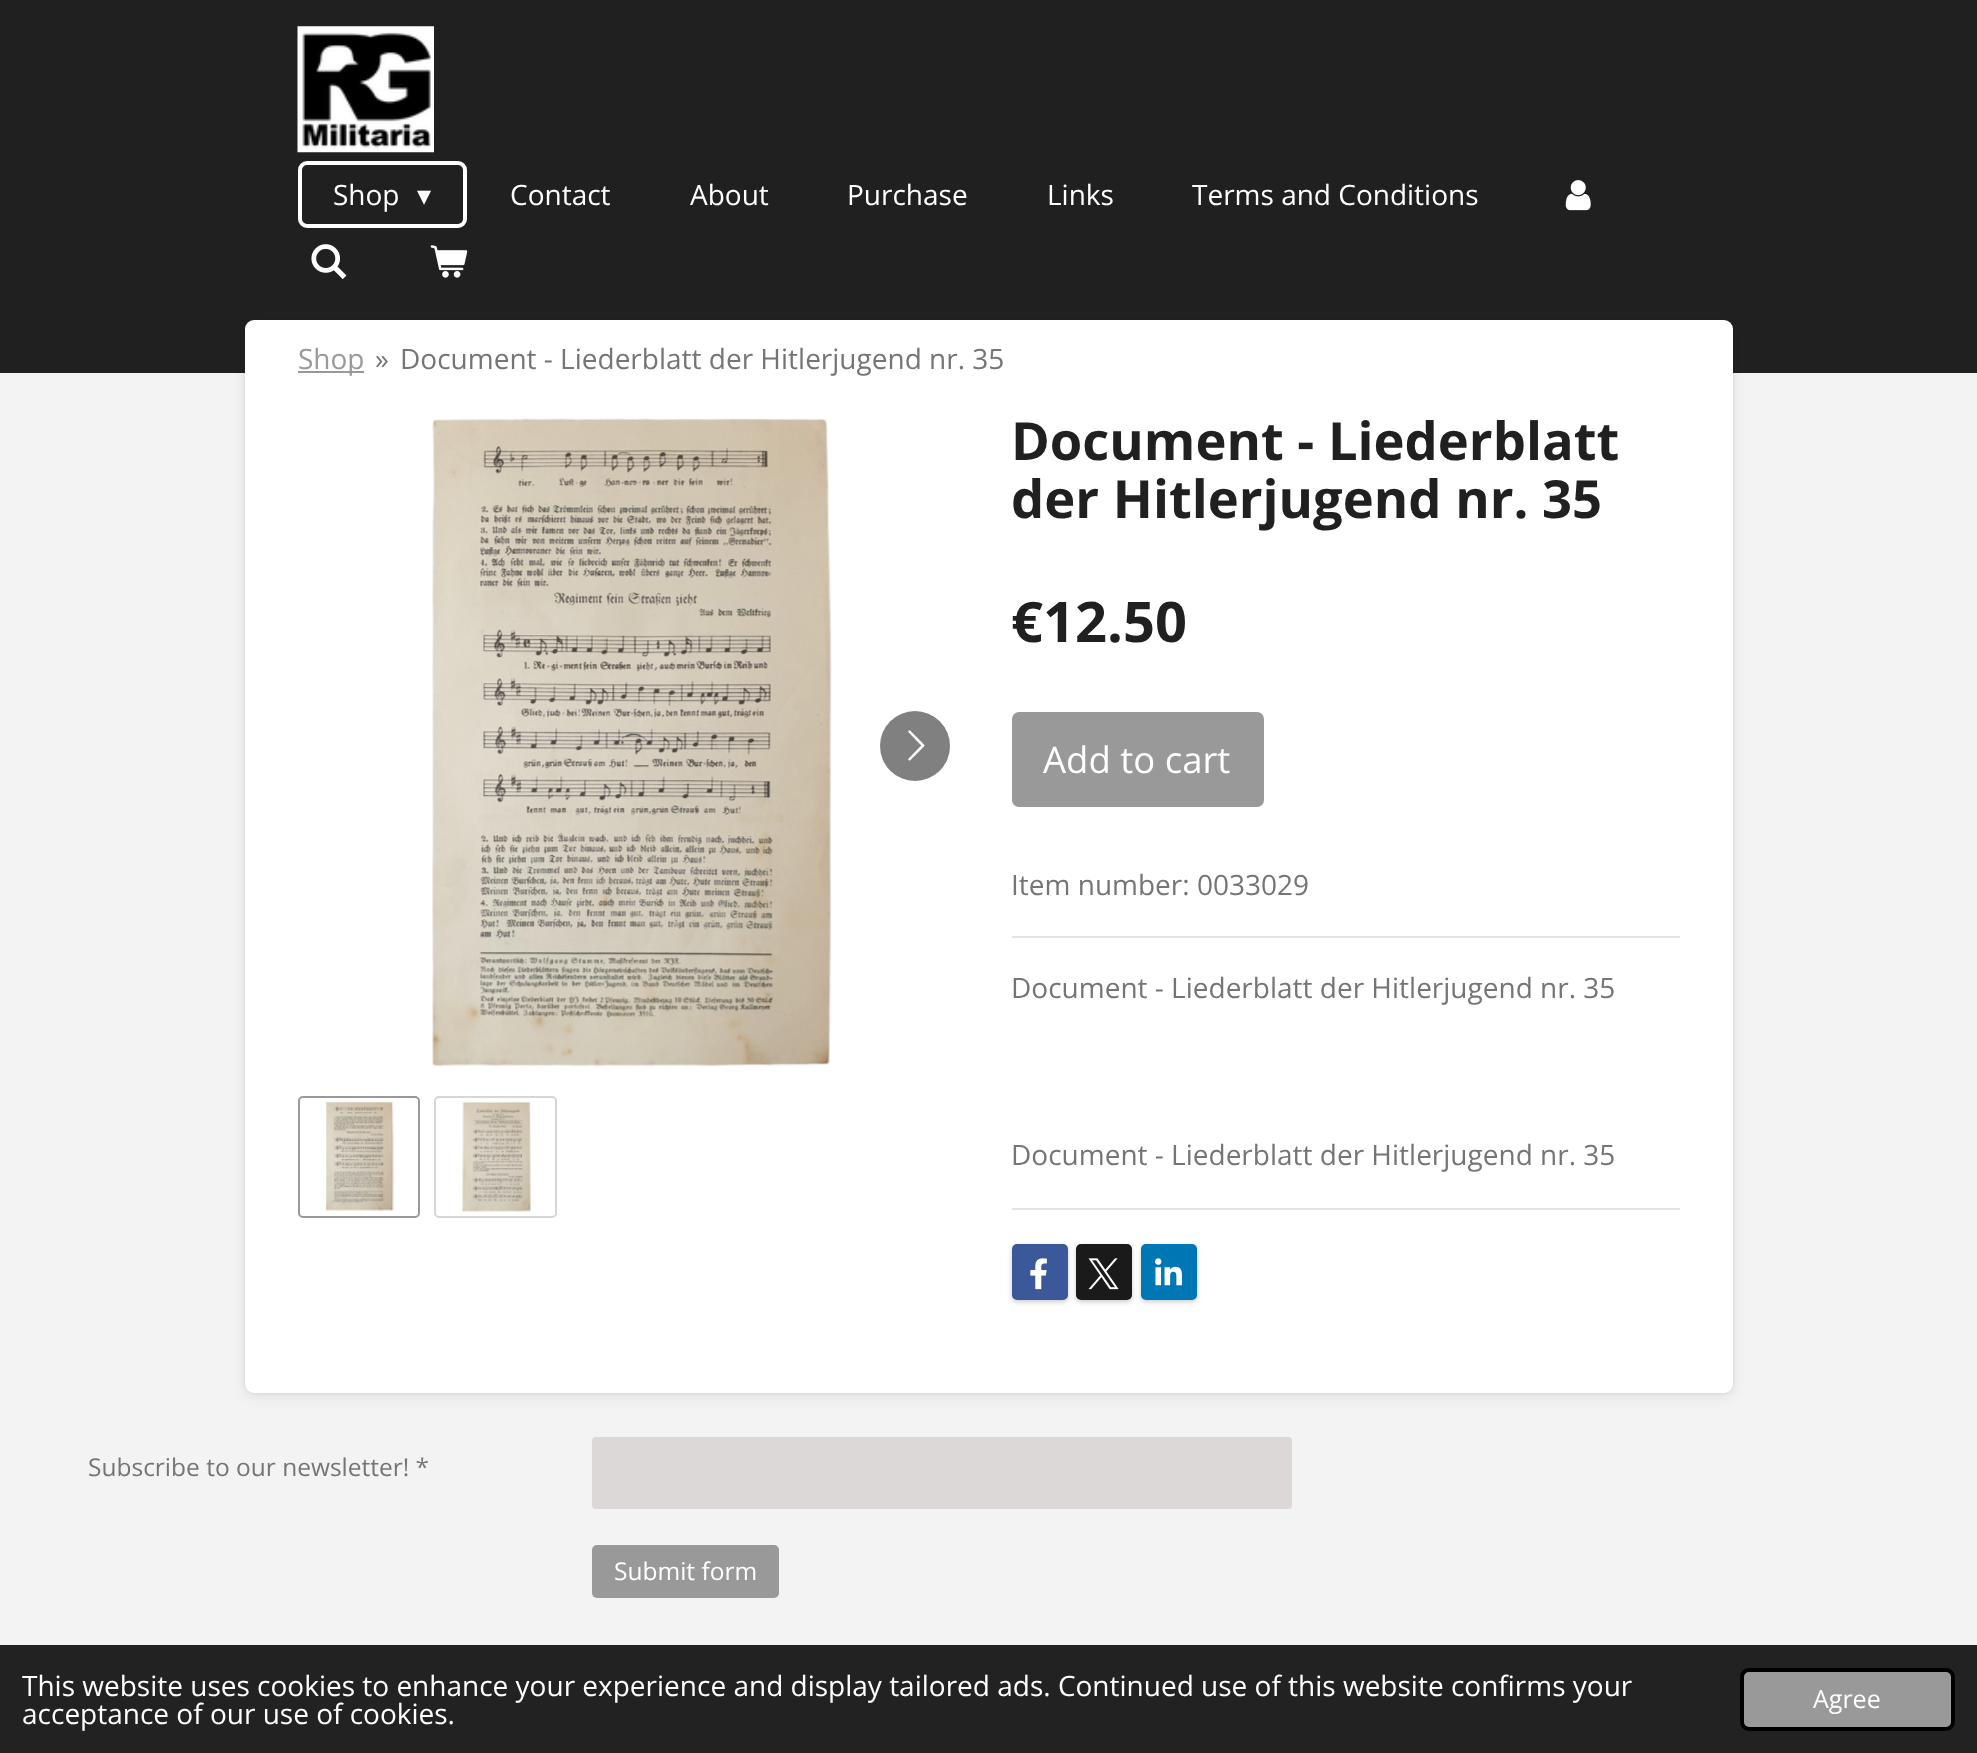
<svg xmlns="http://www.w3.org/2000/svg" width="1977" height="1753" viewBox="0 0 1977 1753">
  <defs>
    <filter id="blur1" x="-50%" y="-200%" width="200%" height="500%"><feGaussianBlur stdDeviation="2"/></filter>
    <filter id="blur2" x="-50%" y="-200%" width="200%" height="500%"><feGaussianBlur stdDeviation="7"/></filter>
    <filter id="blur3" x="-50%" y="-200%" width="200%" height="500%"><feGaussianBlur stdDeviation="2.5"/></filter>
  </defs>
  <rect width="100%" height="100%" fill="#f4f3f3"/>
  <rect x="0" y="0" width="1977" height="373" fill="#202020"/>
  <image x="297" y="26" width="137" height="127" href="img1.png"/>
  <rect x="300" y="163" width="165" height="63" rx="7" fill="none" stroke="#ffffff" stroke-width="4"/>
  <text x="333" y="205" font-family="Open Sans" font-size="28" fill="#ffffff">Shop</text>
  <text x="417" y="205" font-family="DejaVu Sans" font-size="28" fill="#ffffff">▾</text>
  <text x="510" y="205" font-family="Open Sans" font-size="28" fill="#ffffff">Contact</text>
  <text x="690" y="205" font-family="Open Sans" font-size="28" fill="#ffffff">About</text>
  <text x="847" y="205" font-family="Open Sans" font-size="28" fill="#ffffff">Purchase</text>
  <text x="1047" y="205" font-family="Open Sans" font-size="28" fill="#ffffff">Links</text>
  <text x="1192" y="205" font-family="Open Sans" font-size="28" fill="#ffffff">Terms and Conditions</text>
  <image x="1565" y="180" width="26" height="31" href="img2.png"/>
  <image x="311" y="244" width="36" height="36" href="img3.png"/>
  <image x="430" y="245" width="38" height="33" href="img4.png"/>
  <rect x="245" y="320" width="1488" height="1073" rx="9" fill="#000000" fill-opacity="0.1" filter="url(#blur1)"/>
  <rect x="245" y="324" width="1488" height="1073" rx="9" fill="#000000" fill-opacity="0.07" filter="url(#blur2)"/>
  <rect x="245" y="320" width="1488" height="1073" rx="9" fill="#ffffff"/>
  <rect x="298" y="371" width="66" height="2" fill="#999999"/>
  <text x="298" y="369" font-family="Open Sans" font-size="28" fill="#999999">Shop</text>
  <text x="375" y="369" font-family="Open Sans" font-size="28" fill="#757575">»</text>
  <text x="400" y="369" font-family="Open Sans" font-size="28" fill="#757575">Document - Liederblatt der Hitlerjugend nr. 35</text>
  <image x="432" y="418" width="400" height="649" href="img5.png"/>
  <circle cx="915" cy="746" r="35" fill="#808080"/>
  <image x="908" y="730" width="17" height="31" href="img6.png"/>
  <rect x="299" y="1097" width="120" height="120" rx="4" fill="none" stroke="#999999" stroke-width="2"/>
  <image x="326" y="1101" width="68" height="110" href="img7.png"/>
  <rect x="435" y="1097" width="121" height="120" rx="4" fill="none" stroke="#d6d6d6" stroke-width="2"/>
  <image x="462" y="1101" width="69" height="111" href="img8.png"/>
  <text x="1011" y="460" font-family="Open Sans" font-size="52.5" font-weight="bold" fill="#202020">Document - Liederblatt</text>
  <text x="1011" y="518" font-family="Open Sans" font-size="52.5" font-weight="bold" fill="#202020">der Hitlerjugend nr. 35</text>
  <text x="1011" y="642" font-family="Open Sans" font-size="56" font-weight="bold" fill="#202020">€12.50</text>
  <rect x="1012" y="712" width="252" height="95" rx="7" fill="#999999"/>
  <text x="1043" y="773" font-family="Open Sans" font-size="36.5" fill="#ffffff">Add to cart</text>
  <text x="1011" y="895" font-family="Open Sans" font-size="28" fill="#757575">Item number: 0033029</text>
  <rect x="1012" y="936" width="668" height="2" fill="#e3e3e3"/>
  <text x="1011" y="998" font-family="Open Sans" font-size="28" fill="#757575">Document - Liederblatt der Hitlerjugend nr. 35</text>
  <text x="1011" y="1165" font-family="Open Sans" font-size="28" fill="#757575">Document - Liederblatt der Hitlerjugend nr. 35</text>
  <rect x="1012" y="1208" width="668" height="2" fill="#e3e3e3"/>
  <rect x="1012" y="1246" width="56" height="56" rx="5" fill="#000000" fill-opacity="0.2" filter="url(#blur3)"/>
  <rect x="1012" y="1244" width="56" height="56" rx="5" fill="#3b5998"/>
  <image x="1030" y="1258" width="17" height="32" href="img9.png"/>
  <rect x="1076" y="1246" width="56" height="56" rx="5" fill="#000000" fill-opacity="0.2" filter="url(#blur3)"/>
  <rect x="1076" y="1244" width="56" height="56" rx="5" fill="#1a1a1a"/>
  <image x="1088" y="1258" width="31" height="32" href="img10.png"/>
  <rect x="1141" y="1246" width="56" height="56" rx="5" fill="#000000" fill-opacity="0.2" filter="url(#blur3)"/>
  <rect x="1141" y="1244" width="56" height="56" rx="5" fill="#0077b5"/>
  <image x="1155" y="1258" width="27" height="28" href="img11.png"/>
  <text x="88" y="1476" font-family="Open Sans" font-size="24.5" fill="#757575">Subscribe to our newsletter! *</text>
  <rect x="592" y="1437" width="700" height="72" rx="4" fill="#dcd8d8"/>
  <rect x="592" y="1545" width="187" height="53" rx="5" fill="#999999"/>
  <text x="614" y="1580" font-family="Open Sans" font-size="24.5" fill="#ffffff">Submit form</text>
  <rect x="0" y="1645" width="1977" height="108" fill="#222222"/>
  <text x="22" y="1696" font-family="Open Sans" font-size="28" fill="#ffffff">This website uses cookies to enhance your experience and display tailored ads. Continued use of this website confirms your</text>
  <text x="22" y="1724" font-family="Open Sans" font-size="28" fill="#ffffff">acceptance of our use of cookies.</text>
  <rect x="1742" y="1670" width="211" height="59" rx="7" fill="#999999" stroke="#000000" stroke-width="4"/>
  <text x="1813" y="1708" font-family="Open Sans" font-size="25" fill="#ffffff">Agree</text>
</svg>
